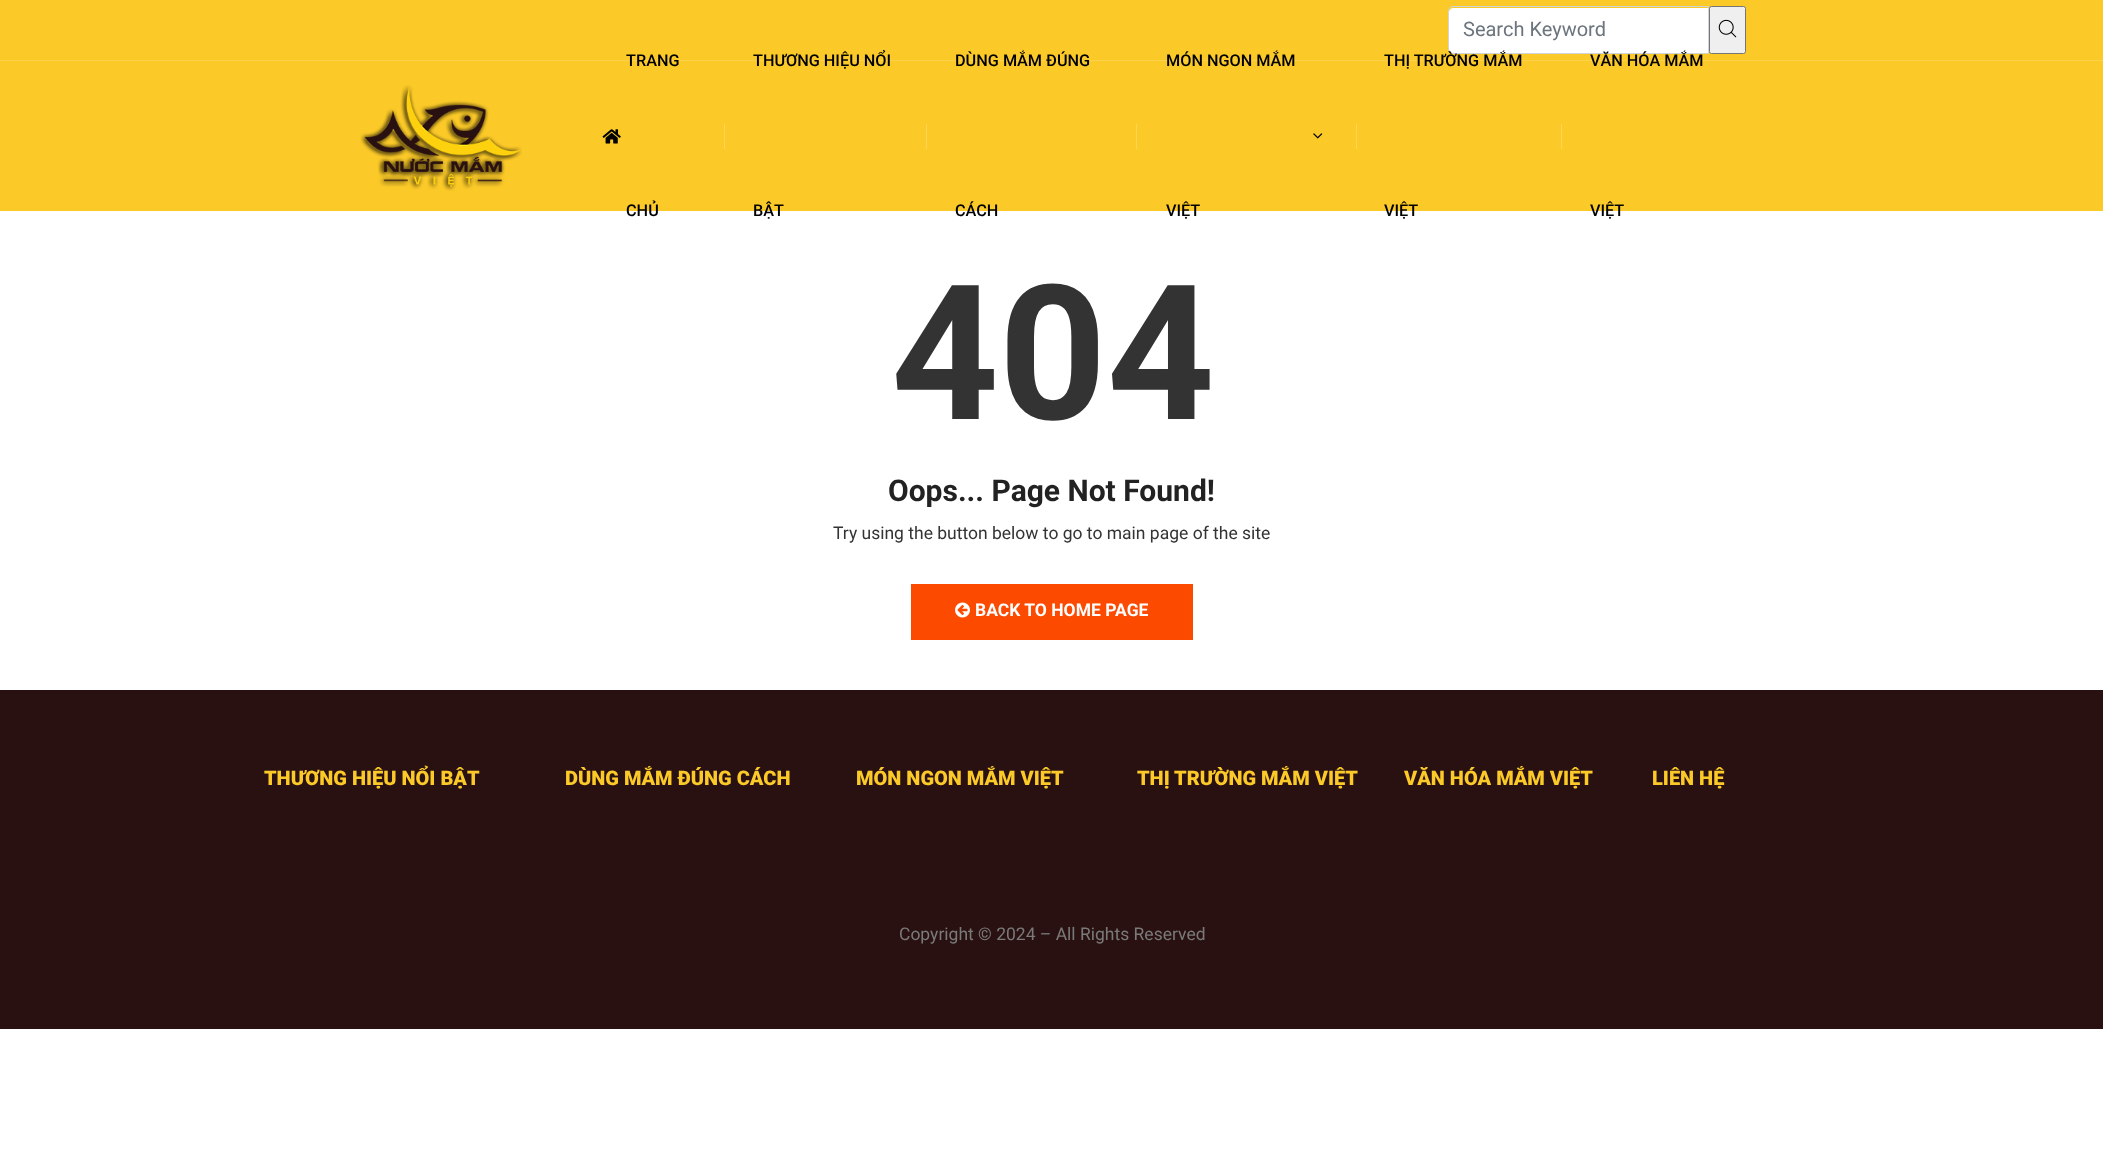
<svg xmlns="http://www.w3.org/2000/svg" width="2103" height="1169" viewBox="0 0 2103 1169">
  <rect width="100%" height="100%" fill="#ffffff"/>
  <rect x="0" y="0" width="2103" height="211" fill="#fcca28"/>
  <rect x="0" y="60" width="2103" height="1" fill="#fcd248"/>
  <path d="M1453 8H1708V53H1453C1451 53 1449 51 1449 49V12C1449 10 1451 8 1453 8Z" fill="#ffffff"/>
  <path d="M1453 6.5H1708.5V53.5H1453C1450.5 53.5 1448.5 51.5 1448.5 49V11C1448.5 8.5 1450.5 6.5 1453 6.5Z" fill="none" stroke="#ced4da"/>
  <text x="1463" y="36" font-family="Roboto" font-size="20" fill="#6c757d">Search Keyword</text>
  <rect x="1709.5" y="6.5" width="36" height="47" rx="2" fill="#efefef" stroke="#767676"/>
  <image x="1718" y="19" width="19" height="19" href="img1.png"/>
  <image x="360" y="85" width="162" height="106" href="img2.png"/>
  <text x="626" y="66" font-family="Roboto" font-size="16.25" font-weight="500" fill="#000000">TRANG</text>
  <image x="602" y="129" width="19" height="15" href="img3.png"/>
  <rect x="724" y="124" width="1" height="25" fill="#fdd553"/>
  <text x="626" y="216" font-family="Roboto" font-size="16.25" font-weight="500" fill="#000000">CHỦ</text>
  <text x="753" y="66" font-family="Roboto" font-size="16.25" font-weight="500" fill="#000000">THƯƠNG HIỆU NỔI</text>
  <rect x="926" y="124" width="1" height="25" fill="#fdd553"/>
  <text x="753" y="216" font-family="Roboto" font-size="16.25" font-weight="500" fill="#000000">BẬT</text>
  <text x="955" y="66" font-family="Roboto" font-size="16.25" font-weight="500" fill="#000000">DÙNG MẮM ĐÚNG</text>
  <rect x="1136" y="124" width="1" height="25" fill="#fdd553"/>
  <text x="955" y="216" font-family="Roboto" font-size="16.25" font-weight="500" fill="#000000">CÁCH</text>
  <text x="1166" y="66" font-family="Roboto" font-size="16.25" font-weight="500" fill="#000000">MÓN NGON MẮM</text>
  <image x="1313" y="133" width="10" height="6" href="img4.png"/>
  <rect x="1356" y="124" width="1" height="25" fill="#fdd553"/>
  <text x="1166" y="216" font-family="Roboto" font-size="16.25" font-weight="500" fill="#000000">VIỆT</text>
  <text x="1384" y="66" font-family="Roboto" font-size="16.25" font-weight="500" fill="#000000">THỊ TRƯỜNG MẮM</text>
  <rect x="1561" y="124" width="1" height="25" fill="#fdd553"/>
  <text x="1384" y="216" font-family="Roboto" font-size="16.25" font-weight="500" fill="#000000">VIỆT</text>
  <text x="1590" y="66" font-family="Roboto" font-size="16.25" font-weight="500" fill="#000000">VĂN HÓA MẮM</text>
  <text x="1590" y="216" font-family="Roboto" font-size="16.25" font-weight="500" fill="#000000">VIỆT</text>
  <text x="891" y="419" font-family="Roboto" font-size="188" font-weight="bold" fill="#333333">404</text>
  <text x="888" y="501" font-family="Roboto" font-size="30" font-weight="bold" fill="#222222">Oops... Page Not Found!</text>
  <text x="833" y="539" font-family="Roboto" font-size="17.5" fill="#333333">Try using the button below to go to main page of the site</text>
  <rect x="911" y="584" width="282" height="56" fill="#fc4a00"/>
  <image x="955" y="602" width="15" height="16" href="img5.png"/>
  <text x="975" y="616" font-family="Roboto" font-size="17.5" font-weight="bold" fill="#ffffff">BACK TO HOME PAGE</text>
  <rect x="0" y="690" width="2103" height="339" fill="#2a1111"/>
  <text x="264" y="785" font-family="Roboto" font-size="20" font-weight="900" fill="#fcca28">THƯƠNG HIỆU NỔI BẬT</text>
  <text x="565" y="785" font-family="Roboto" font-size="20" font-weight="900" fill="#fcca28">DÙNG MẮM ĐÚNG CÁCH</text>
  <text x="856" y="785" font-family="Roboto" font-size="20" font-weight="900" fill="#fcca28">MÓN NGON MẮM VIỆT</text>
  <text x="1137" y="785" font-family="Roboto" font-size="20" font-weight="900" fill="#fcca28">THỊ TRƯỜNG MẮM VIỆT</text>
  <text x="1404" y="785" font-family="Roboto" font-size="20" font-weight="900" fill="#fcca28">VĂN HÓA MẮM VIỆT</text>
  <text x="1652" y="785" font-family="Roboto" font-size="20" font-weight="900" fill="#fcca28">LIÊN HỆ</text>
  <text x="899" y="940" font-family="Roboto" font-size="17.5" fill="#7a7a7a">Copyright © 2024 – All Rights Reserved</text>
</svg>
